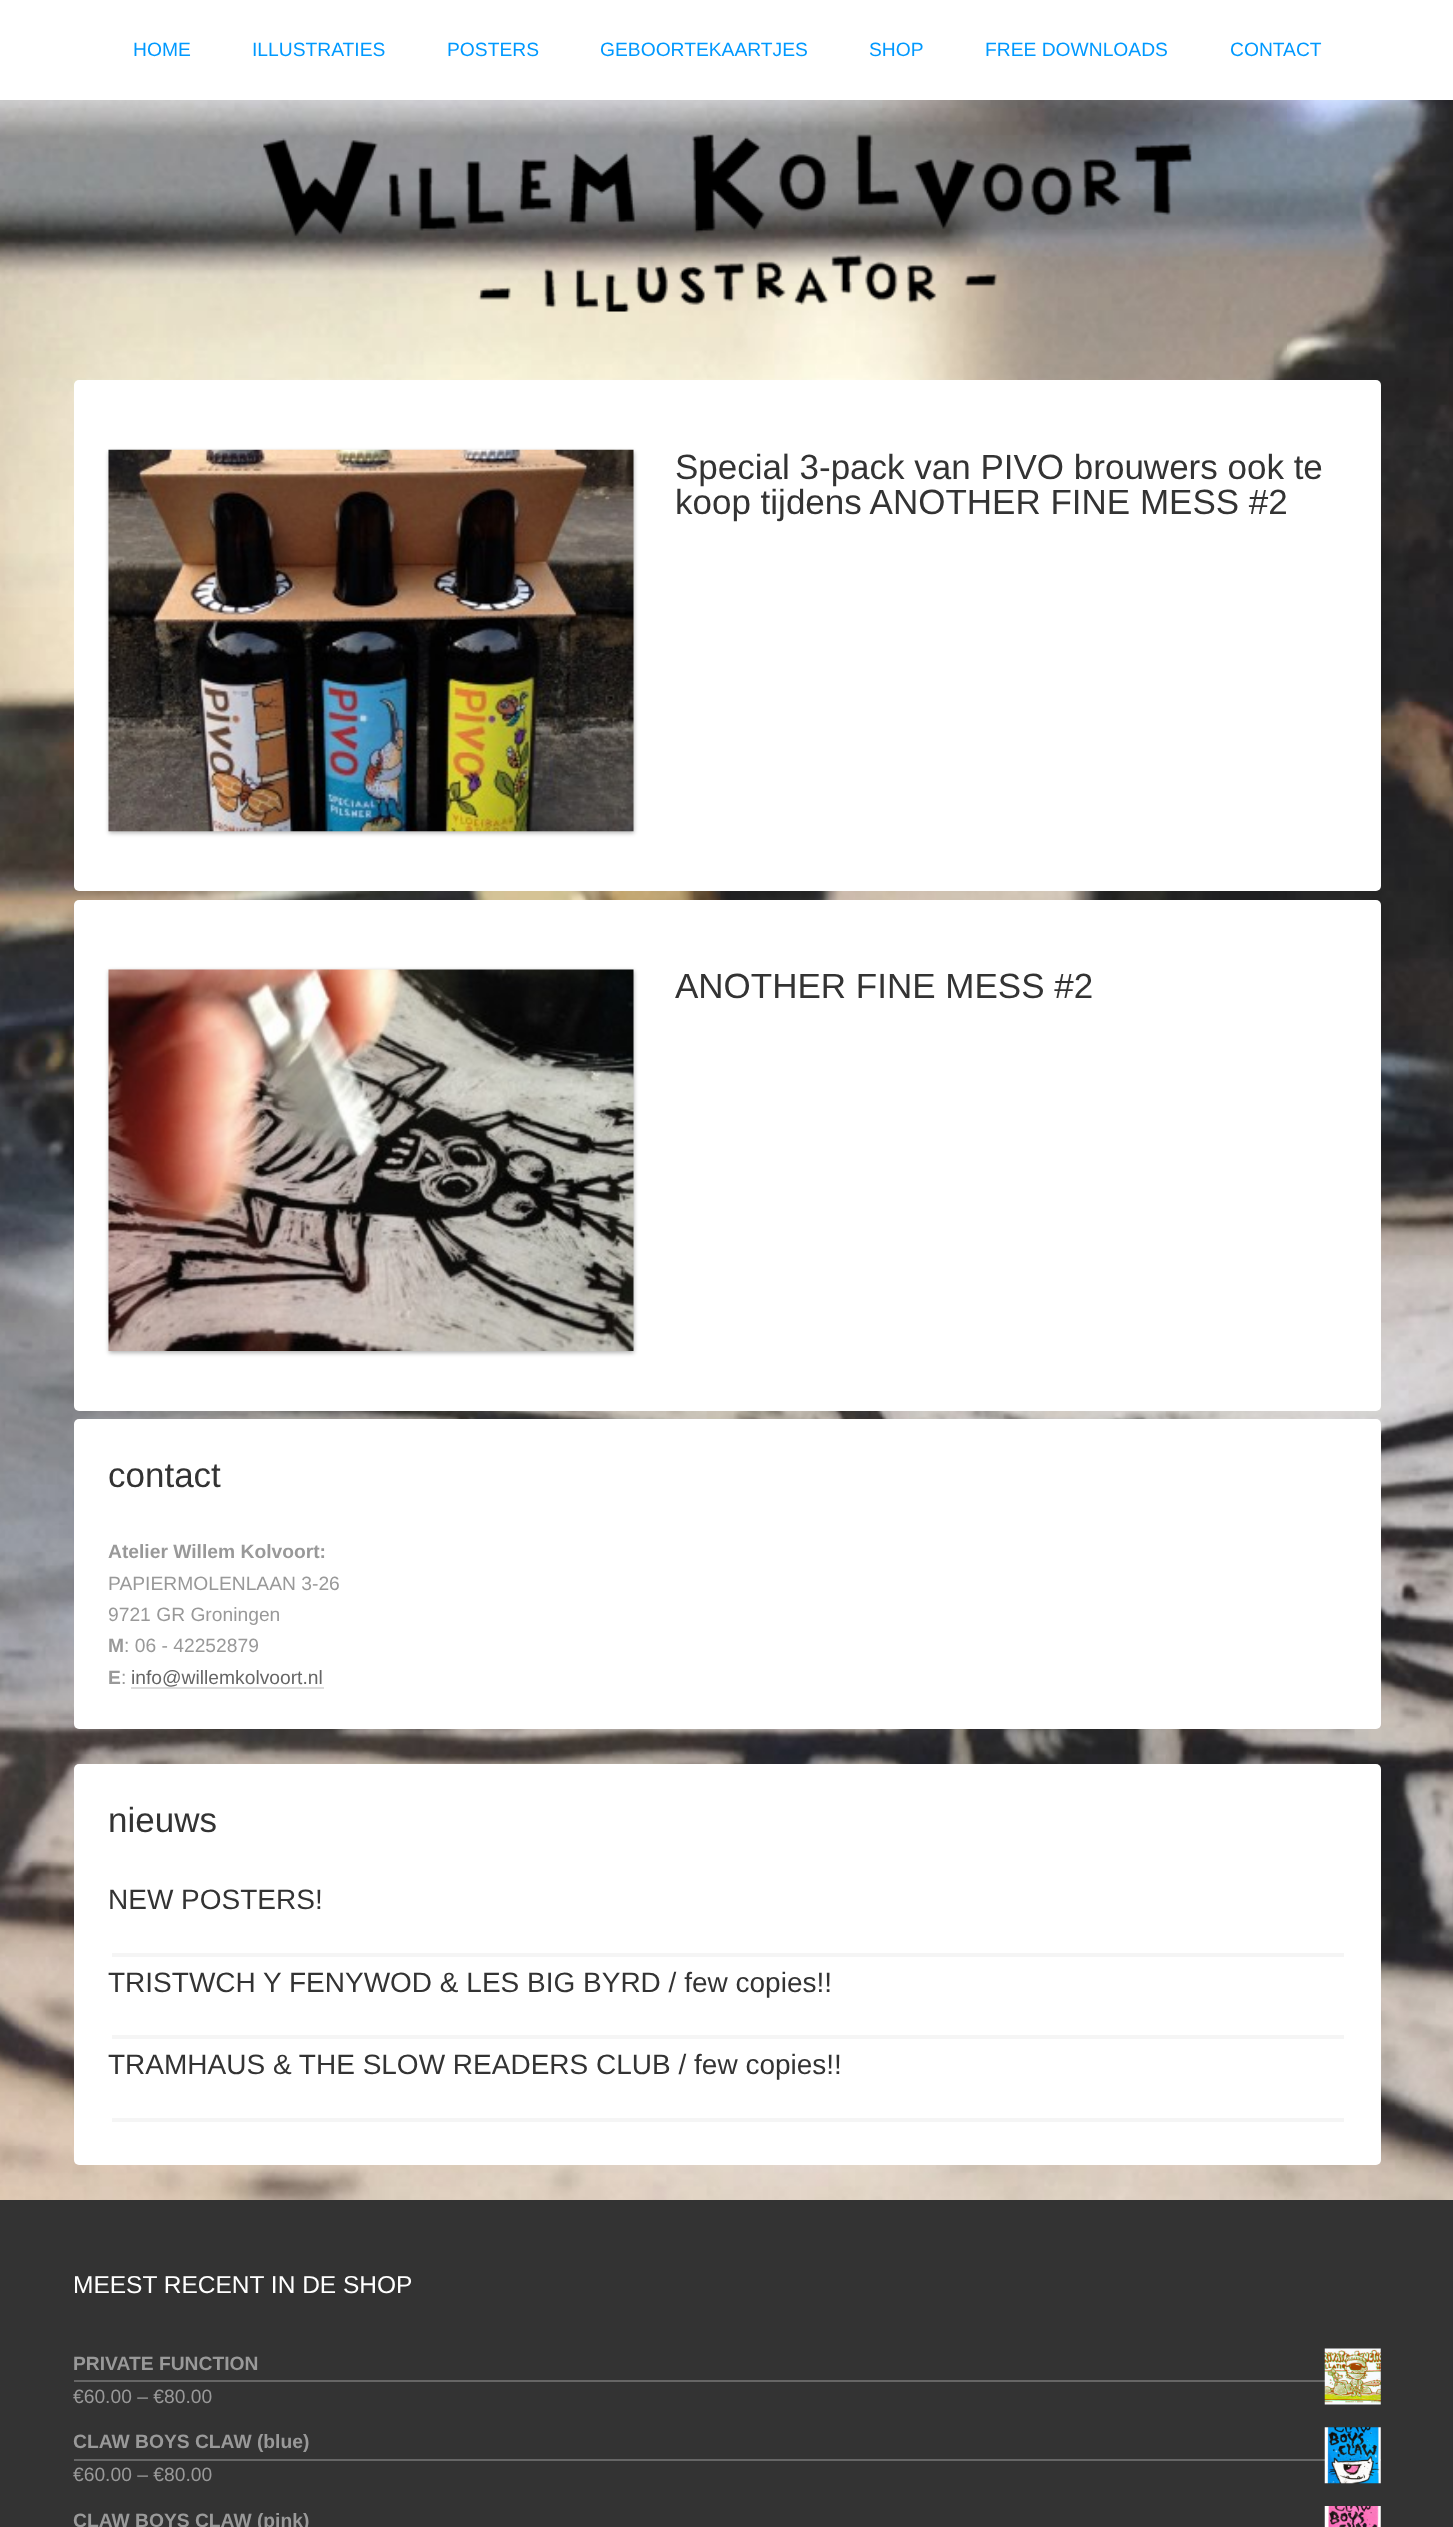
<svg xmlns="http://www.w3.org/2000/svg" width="1453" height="2527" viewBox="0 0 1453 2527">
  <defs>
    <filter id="blur1" x="-50%" y="-200%" width="200%" height="500%"><feGaussianBlur stdDeviation="2"/></filter>
  </defs>
  <rect width="100%" height="100%" fill="#ffffff"/>
  <image x="0" y="100" width="1453" height="2100" href="img1.png"/>
  <text x="133" y="56" font-family="Liberation Sans" font-size="19.25" fill="#0099ff">HOME</text>
  <text x="252" y="56" font-family="Liberation Sans" font-size="19.25" fill="#0099ff">ILLUSTRATIES</text>
  <text x="447" y="56" font-family="Liberation Sans" font-size="19.25" fill="#0099ff">POSTERS</text>
  <text x="600" y="56" font-family="Liberation Sans" font-size="19.25" fill="#0099ff">GEBOORTEKAARTJES</text>
  <text x="869" y="56" font-family="Liberation Sans" font-size="19.25" fill="#0099ff">SHOP</text>
  <text x="985" y="56" font-family="Liberation Sans" font-size="19.25" fill="#0099ff">FREE DOWNLOADS</text>
  <text x="1230" y="56" font-family="Liberation Sans" font-size="19.25" fill="#0099ff">CONTACT</text>
  <image x="263" y="134" width="929" height="178" href="img2.png"/>
  <rect x="74" y="380" width="1307" height="511" rx="5" fill="#ffffff"/>
  <rect x="109" y="452" width="525" height="381" fill="#000000" fill-opacity="0.3" filter="url(#blur1)"/>
  <image x="108" y="449" width="526" height="383" href="img3.png"/>
  <text x="675" y="479" font-family="Liberation Sans" font-size="35" fill="#333333">Special 3-pack van PIVO brouwers ook te</text>
  <text x="675" y="514" font-family="Liberation Sans" font-size="35" fill="#333333">koop tijdens ANOTHER FINE MESS #2</text>
  <rect x="74" y="900" width="1307" height="511" rx="5" fill="#ffffff"/>
  <rect x="109" y="971" width="525" height="382" fill="#000000" fill-opacity="0.3" filter="url(#blur1)"/>
  <image x="108" y="969" width="526" height="382" href="img4.png"/>
  <text x="675" y="998" font-family="Liberation Sans" font-size="35" fill="#333333">ANOTHER FINE MESS #2</text>
  <rect x="74" y="1419" width="1307" height="310" rx="5" fill="#ffffff"/>
  <text x="108" y="1487" font-family="Liberation Sans" font-size="35" fill="#333333">contact</text>
  <text x="108" y="1558" font-family="Liberation Sans" font-size="19.25" font-weight="bold" fill="#999999">Atelier Willem Kolvoort:</text>
  <text x="108" y="1590" font-family="Liberation Sans" font-size="19.25" fill="#999999">PAPIERMOLENLAAN 3-26</text>
  <text x="108" y="1621" font-family="Liberation Sans" font-size="19.25" fill="#999999">9721 GR Groningen</text>
  <text x="108" y="1652" font-family="Liberation Sans" font-size="19.25" font-weight="bold" fill="#999999">M</text>
  <text x="124" y="1652" font-family="Liberation Sans" font-size="19.25" fill="#999999">: 06 - 42252879</text>
  <text x="108" y="1684" font-family="Liberation Sans" font-size="19.25" font-weight="bold" fill="#999999">E</text>
  <text x="121" y="1684" font-family="Liberation Sans" font-size="19.25" fill="#999999">:</text>
  <text x="131" y="1684" font-family="Liberation Sans" font-size="19.25" fill="#666666">info@willemkolvoort.nl</text>
  <rect x="131" y="1687" width="193" height="2" fill="#dddddd"/>
  <rect x="74" y="1764" width="1307" height="401" rx="5" fill="#ffffff"/>
  <text x="108" y="1832" font-family="Liberation Sans" font-size="35" fill="#333333">nieuws</text>
  <rect x="112" y="1953" width="1232" height="4" fill="#f5f5f5"/>
  <text x="108" y="1909" font-family="Liberation Sans" font-size="28" fill="#333333">NEW POSTERS!</text>
  <rect x="112" y="2035" width="1232" height="4" fill="#f5f5f5"/>
  <text x="108" y="1992" font-family="Liberation Sans" font-size="28" fill="#333333">TRISTWCH Y FENYWOD &amp; LES BIG BYRD / few copies!!</text>
  <rect x="112" y="2118" width="1232" height="4" fill="#f5f5f5"/>
  <text x="108" y="2074" font-family="Liberation Sans" font-size="28" fill="#333333">TRAMHAUS &amp; THE SLOW READERS CLUB / few copies!!</text>
  <rect x="0" y="2200" width="1453" height="327" fill="#333333"/>
  <text x="73" y="2293" font-family="Liberation Sans" font-size="24.5" fill="#ffffff">MEEST RECENT IN DE SHOP</text>
  <rect x="74" y="2380" width="1307" height="2" fill="#666666"/>
  <text x="73" y="2370" font-family="Liberation Sans" font-size="19.25" font-weight="bold" fill="#999999">PRIVATE FUNCTION</text>
  <image x="1324" y="2348" width="57" height="57" href="img5.png"/>
  <text x="73" y="2403" font-family="Liberation Sans" font-size="19.25" fill="#999999">€60.00 – €80.00</text>
  <rect x="74" y="2459" width="1307" height="2" fill="#666666"/>
  <text x="73" y="2448" font-family="Liberation Sans" font-size="19.25" font-weight="bold" fill="#999999">CLAW BOYS CLAW (blue)</text>
  <image x="1324" y="2427" width="57" height="57" href="img6.png"/>
  <text x="73" y="2481" font-family="Liberation Sans" font-size="19.25" fill="#999999">€60.00 – €80.00</text>
  <text x="73" y="2527" font-family="Liberation Sans" font-size="19.25" font-weight="bold" fill="#999999">CLAW BOYS CLAW (pink)</text>
  <image x="1324" y="2506" width="57" height="21" href="img7.png"/>
</svg>
